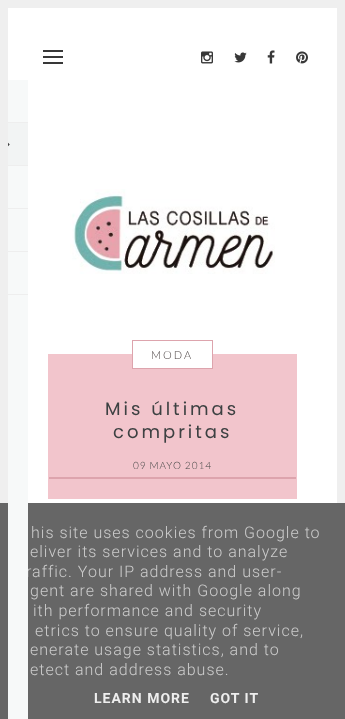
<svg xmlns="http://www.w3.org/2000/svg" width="345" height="719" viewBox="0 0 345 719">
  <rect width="100%" height="100%" fill="#efefef"/>
  <rect x="8" y="8" width="329" height="495" fill="#ffffff"/>
  <rect x="43" y="50" width="20" height="2" fill="#383838"/>
  <rect x="43" y="56" width="20" height="2" fill="#383838"/>
  <rect x="43" y="62" width="20" height="2" fill="#383838"/>
  <image x="201" y="51" width="12" height="13" href="img1.png"/>
  <image x="234" y="52" width="13" height="11" href="img2.png"/>
  <image x="267" y="50" width="8" height="14" href="img3.png"/>
  <image x="296" y="51" width="12" height="13" href="img4.png"/>
  <rect x="0" y="503" width="345" height="216" fill="#666666"/>
  <text x="26" y="577" font-family="Roboto" font-size="16" font-weight="300" letter-spacing="1" fill="#cccccc">raffic. Your IP address and user-</text>
  <rect x="8" y="80" width="20" height="639" fill="#f7f9f9"/>
  <rect x="8" y="122" width="20" height="1" fill="#eeeeee"/>
  <rect x="8" y="123" width="20" height="42" fill="#f2f4f4"/>
  <image x="8" y="142" width="2" height="5" href="img5.png"/>
  <rect x="8" y="165" width="20" height="1" fill="#eeeeee"/>
  <rect x="8" y="208" width="20" height="1" fill="#eeeeee"/>
  <rect x="8" y="251" width="20" height="1" fill="#eeeeee"/>
  <rect x="8" y="294" width="20" height="1" fill="#eeeeee"/>
  <image x="70" y="189" width="205" height="85" href="img6.png"/>
  <rect x="48" y="354" width="249" height="145" fill="#f2c5cc"/>
  <rect x="133" y="354" width="79" height="14" fill="#ffffff"/>
  <rect x="132.5" y="340.5" width="80" height="28" fill="none" stroke="#dda4ad"/>
  <text x="151" y="359" font-family="Lato" font-size="11" font-weight="300" letter-spacing="2" fill="#4a4242">MODA</text>
  <text x="105" y="415" font-family="Poppins" font-size="18" letter-spacing="3" fill="#3d4142">Mis últimas</text>
  <text x="113" y="438" font-family="Poppins" font-size="18" letter-spacing="3" fill="#3d4142">compritas</text>
  <rect x="49" y="477" width="247" height="2" fill="#dda4ad"/>
  <text x="133" y="469" font-family="Lato" font-size="10" font-weight="300" letter-spacing="1" fill="#474847">09 MAYO 2014</text>
  <text x="31" y="538" font-family="Roboto" font-size="16" font-weight="300" letter-spacing="1" fill="#cccccc">his site uses cookies from Google to</text>
  <text x="30" y="557" font-family="Roboto" font-size="16" font-weight="300" letter-spacing="1" fill="#cccccc">eliver its services and to analyze</text>
  <text x="30" y="596" font-family="Roboto" font-size="16" font-weight="300" letter-spacing="1" fill="#cccccc">gent are shared with Google along</text>
  <text x="33" y="616" font-family="Roboto" font-size="16" font-weight="300" letter-spacing="1" fill="#cccccc">ith performance and security</text>
  <text x="35" y="636" font-family="Roboto" font-size="16" font-weight="300" letter-spacing="1" fill="#cccccc">etrics to ensure quality of service,</text>
  <text x="30" y="655" font-family="Roboto" font-size="16" font-weight="300" letter-spacing="1" fill="#cccccc">enerate usage statistics, and to</text>
  <text x="30" y="675" font-family="Roboto" font-size="16" font-weight="300" letter-spacing="1" fill="#cccccc">etect and address abuse.</text>
  <text x="94" y="703" font-family="Roboto" font-size="14" font-weight="bold" letter-spacing="1" fill="#eeeeee">LEARN MORE</text>
  <text x="210" y="703" font-family="Roboto" font-size="14" font-weight="bold" letter-spacing="1" fill="#eeeeee">GOT IT</text>
</svg>
